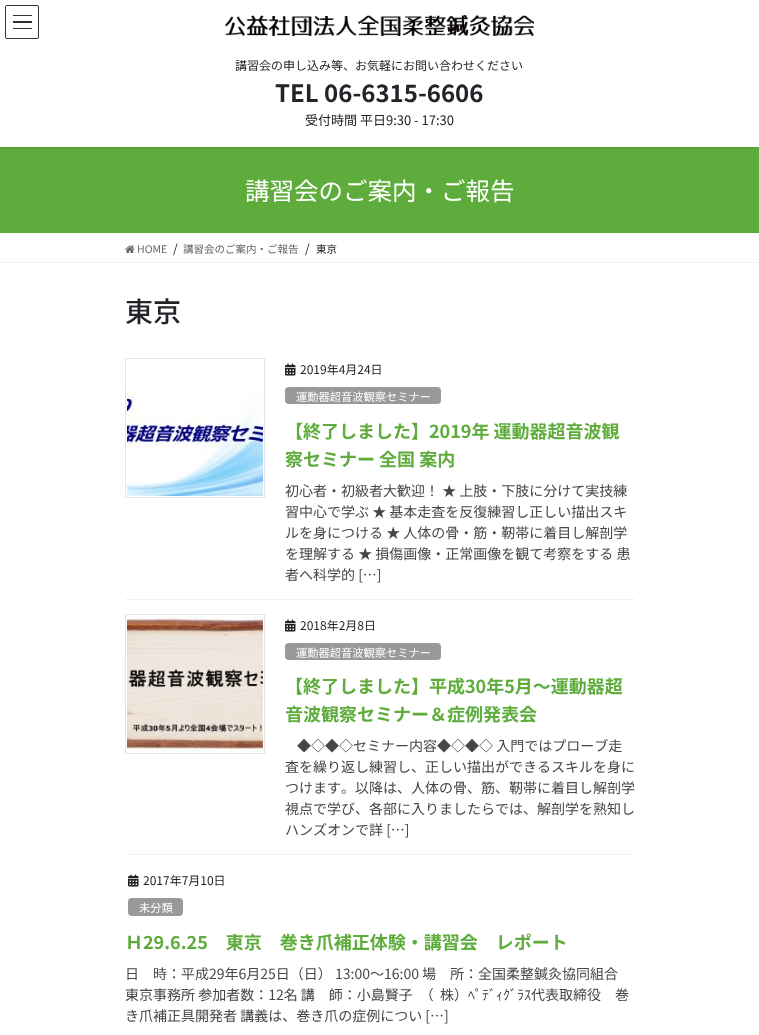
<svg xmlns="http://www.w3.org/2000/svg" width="759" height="1035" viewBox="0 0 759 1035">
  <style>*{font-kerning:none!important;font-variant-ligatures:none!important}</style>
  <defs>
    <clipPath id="clip1"><rect x="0" y="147" width="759" height="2"/></clipPath>
    <filter id="blur1" x="-50%" y="-200%" width="200%" height="500%"><feGaussianBlur stdDeviation="1.5"/></filter>
  </defs>
  <rect width="100%" height="100%" fill="#ffffff"/>
  <rect x="0" y="147" width="759" height="86" fill="#5ead3c"/>
  <g clip-path="url(#clip1)">
    <rect x="0" y="1" width="759" height="147" fill="#000000" fill-opacity="0.1" filter="url(#blur1)"/>
  </g>
  <rect x="13" y="15" width="19" height="1" fill="#333333"/>
  <rect x="13" y="21" width="19" height="2" fill="#333333"/>
  <rect x="13" y="28" width="19" height="1" fill="#333333"/>
  <rect x="5.5" y="5.5" width="33" height="33" rx="1.5" fill="none" stroke="#333333"/>
  <image x="225" y="15" width="309" height="21" href="img1.png"/>
  <text x="235" y="70" font-family="Noto Sans JP" font-size="12" fill="#212529">講習会の申し込み等、お気軽にお問い合わせください</text>
  <text x="275" y="102" font-family="Noto Sans JP" font-size="24" font-weight="bold" fill="#212529">TEL 06-6315-6606</text>
  <text x="305" y="125" font-family="Noto Sans JP" font-size="13" fill="#212529">受付時間 平日9:30 - 17:30</text>
  <text x="245" y="200" font-family="Noto Sans JP" font-size="24.5" fill="#ffffff">講習会のご案内・ご報告</text>
  <rect x="0" y="262" width="759" height="1" fill="#f2f2f2"/>
  <image x="125" y="245" width="10" height="8" href="img2.png"/>
  <text x="137" y="253" font-family="Noto Sans JP" font-size="10.5" fill="#666666">HOME</text>
  <text x="173" y="253" font-family="Noto Sans JP" font-size="12" fill="#212529">/</text>
  <text x="183" y="253" font-family="Noto Sans JP" font-size="10.5" fill="#666666">講習会のご案内・ご報告</text>
  <text x="305" y="253" font-family="Noto Sans JP" font-size="12" fill="#212529">/</text>
  <text x="316" y="253" font-family="Noto Sans JP" font-size="10.5" fill="#212529">東京</text>
  <text x="125" y="322" font-family="Noto Sans JP" font-size="28" font-weight="500" fill="#212529">東京</text>
  <rect x="125" y="599" width="510" height="1" fill="#f2f2f2"/>
  <rect x="125.5" y="358.5" width="139" height="139" fill="none" stroke="#e5e5e5"/>
  <image x="127" y="389" width="136" height="107" href="img3.png"/>
  <image x="285" y="363" width="11" height="13" href="img4.png"/>
  <text x="300" y="374" font-family="Noto Sans JP" font-size="12" fill="#212529">2019年4月24日</text>
  <rect x="285" y="387" width="156" height="17" rx="4" fill="#999999"/>
  <text x="296" y="401" font-family="Noto Sans JP" font-size="11.25" fill="#ffffff">運動器超音波観察セミナー</text>
  <text x="285" y="438" font-family="Noto Sans JP" font-size="18" font-weight="bold" fill="#5ead3c">【終了しました】2019年 運動器超音波観</text>
  <text x="285" y="466" font-family="Noto Sans JP" font-size="18" font-weight="bold" fill="#5ead3c">察セミナー 全国 案内</text>
  <text x="285" y="496" font-family="Noto Sans JP" font-size="14" fill="#464646">初心者・初級者大歓迎！ ★ 上肢・下肢に分けて実技練</text>
  <text x="285" y="517" font-family="Noto Sans JP" font-size="14" fill="#464646">習中心で学ぶ ★ 基本走査を反復練習し正しい描出スキ</text>
  <text x="285" y="538" font-family="Noto Sans JP" font-size="14" fill="#464646">ルを身につける ★ 人体の骨・筋・靭帯に着目し解剖学</text>
  <text x="285" y="559" font-family="Noto Sans JP" font-size="14" fill="#464646">を理解する ★ 損傷画像・正常画像を観て考察をする 患</text>
  <text x="285" y="580" font-family="Noto Sans JP" font-size="14" fill="#464646">者へ科学的 […]</text>
  <rect x="125" y="854" width="510" height="1" fill="#f2f2f2"/>
  <rect x="125.5" y="614.5" width="139" height="139" fill="none" stroke="#e5e5e5"/>
  <image x="127" y="616" width="136" height="136" href="img5.png"/>
  <image x="285" y="619" width="11" height="13" href="img4.png"/>
  <text x="300" y="630" font-family="Noto Sans JP" font-size="12" fill="#212529">2018年2月8日</text>
  <rect x="285" y="643" width="156" height="17" rx="4" fill="#999999"/>
  <text x="296" y="657" font-family="Noto Sans JP" font-size="11.25" fill="#ffffff">運動器超音波観察セミナー</text>
  <text x="285" y="693" font-family="Noto Sans JP" font-size="18" font-weight="bold" fill="#5ead3c">【終了しました】平成30年5月～運動器超</text>
  <text x="285" y="721" font-family="Noto Sans JP" font-size="18" font-weight="bold" fill="#5ead3c">音波観察セミナー＆症例発表会</text>
  <text x="297" y="751" font-family="Noto Sans JP" font-size="14" fill="#464646">◆◇◆◇セミナー内容◆◇◆◇ 入門ではプローブ走</text>
  <text x="285" y="772" font-family="Noto Sans JP" font-size="14" fill="#464646">査を繰り返し練習し、正しい描出ができるスキルを身に</text>
  <text x="285" y="793" font-family="Noto Sans JP" font-size="14" fill="#464646">つけます。以降は、人体の骨、筋、靭帯に着目し解剖学</text>
  <text x="285" y="814" font-family="Noto Sans JP" font-size="14" fill="#464646">視点で学び、各部に入りましたらでは、解剖学を熟知し</text>
  <text x="285" y="835" font-family="Noto Sans JP" font-size="14" fill="#464646">ハンズオンで詳 […]</text>
  <image x="128" y="874" width="11" height="13" href="img4.png"/>
  <text x="143" y="885" font-family="Noto Sans JP" font-size="12" fill="#212529">2017年7月10日</text>
  <rect x="128" y="898" width="55" height="18" rx="4" fill="#999999"/>
  <text x="139" y="912" font-family="Noto Sans JP" font-size="11.25" fill="#ffffff">未分類</text>
  <text x="125" y="949" font-family="Noto Sans JP" font-size="18" font-weight="bold" fill="#5ead3c">Ｈ29.6.25　東京　巻き爪補正体験・講習会　レポート</text>
  <text x="125" y="979" font-family="Noto Sans JP" font-size="14" fill="#464646">日　時：平成29年6月25日（日） 13:00～16:00 場　所：全国柔整鍼灸協同組合</text>
  <text x="125" y="1000" font-family="Noto Sans JP" font-size="14" fill="#464646">東京事務所 参加者数：12名 講　師：小島賢子　（</text>
  <text x="440" y="1000" font-family="Noto Sans JP" font-size="14" fill="#464646">株）ﾍﾟﾃﾞｨｸﾞﾗｽ代表取締役　巻</text>
  <text x="125" y="1021" font-family="Noto Sans JP" font-size="14" fill="#464646">き爪補正具開発者 講義は、巻き爪の症例につい […]</text>
</svg>
